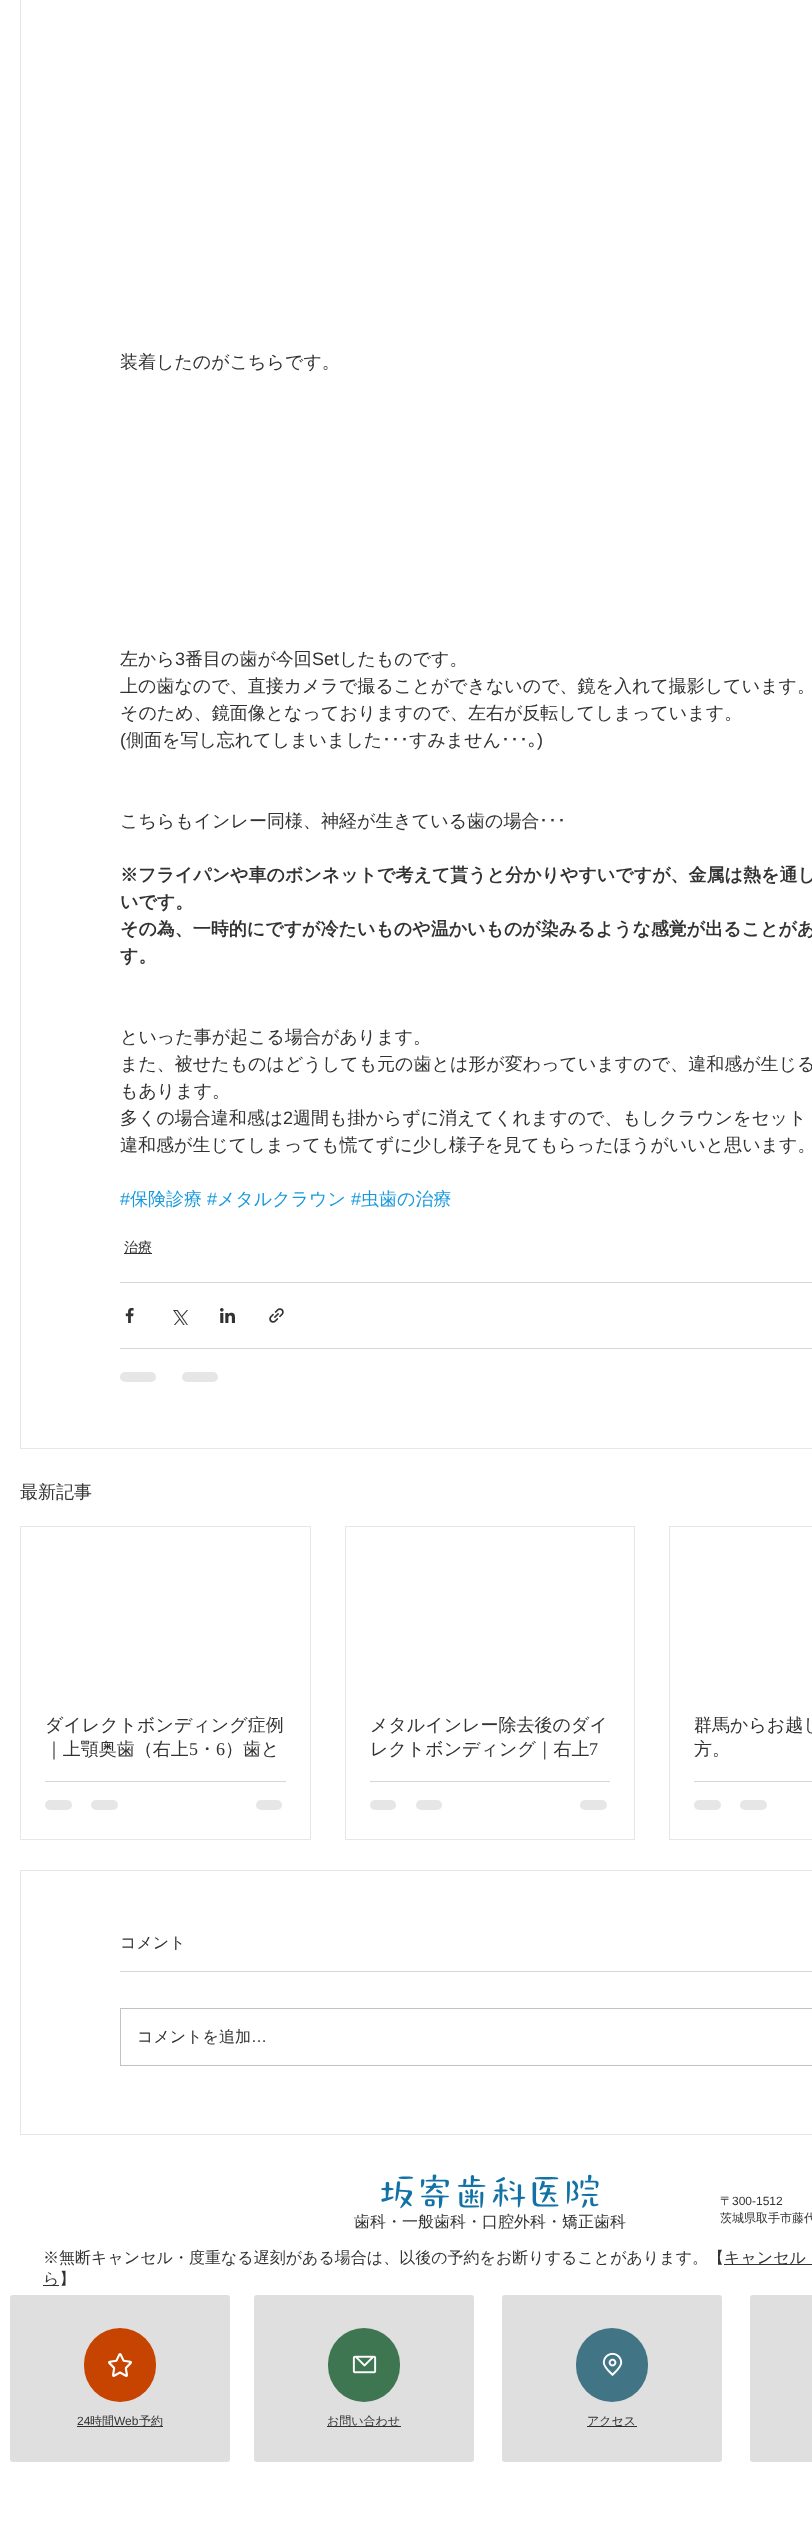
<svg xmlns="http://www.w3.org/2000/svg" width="812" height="2523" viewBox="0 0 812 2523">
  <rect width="100%" height="100%" fill="#ffffff"/>
  <rect x="20.5" y="-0.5" width="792" height="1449" fill="none" stroke="#e8e7e7"/>
  <text x="120" y="368" font-family="WenQuanYi Zen Hei" font-size="18" font-weight="500" fill="#323232">装着したのがこちらです。</text>
  <text x="120" y="665" font-family="WenQuanYi Zen Hei" font-size="18" font-weight="500" fill="#323232">左から</text>
  <text x="175" y="665" font-family="Liberation Sans" font-size="18" fill="#323232">3</text>
  <text x="185" y="665" font-family="WenQuanYi Zen Hei" font-size="18" font-weight="500" fill="#323232">番目の歯が今回</text>
  <text x="312" y="665" font-family="Liberation Sans" font-size="18" fill="#323232">Set</text>
  <text x="339" y="665" font-family="WenQuanYi Zen Hei" font-size="18" font-weight="500" fill="#323232">したものです。</text>
  <text x="120" y="692" font-family="WenQuanYi Zen Hei" font-size="18" font-weight="500" fill="#323232">上の歯なので、直接カメラで撮ることができないので、鏡を入れて撮影しています。</text>
  <text x="120" y="719" font-family="WenQuanYi Zen Hei" font-size="18" font-weight="500" fill="#323232">そのため、鏡面像となっておりますので、左右が反転してしまっています。</text>
  <text x="120" y="746" font-family="Liberation Sans" font-size="18" fill="#323232">(</text>
  <text x="126" y="746" font-family="WenQuanYi Zen Hei" font-size="18" font-weight="500" fill="#323232">側面を写し忘れてしまいました</text>
  <text x="382" y="746" font-family="IPAPGothic" font-size="18" fill="#323232">･･･</text>
  <text x="409" y="746" font-family="WenQuanYi Zen Hei" font-size="18" font-weight="500" fill="#323232">すみません</text>
  <text x="501" y="746" font-family="IPAPGothic" font-size="18" fill="#323232">･･･｡</text>
  <text x="537" y="746" font-family="Liberation Sans" font-size="18" fill="#323232">)</text>
  <text x="120" y="827" font-family="WenQuanYi Zen Hei" font-size="18" font-weight="500" fill="#323232">こちらもインレー同様、神経が生きている歯の場合</text>
  <text x="539" y="827" font-family="IPAPGothic" font-size="18" fill="#323232">･･･</text>
  <text x="120" y="881" font-family="WenQuanYi Zen Hei" font-size="18" font-weight="bold" fill="#323232">※フライパンや車のボンネットで考えて貰うと分かりやすいですが、金属は熱を通し</text>
  <text x="120" y="908" font-family="WenQuanYi Zen Hei" font-size="18" font-weight="bold" fill="#323232">いです。</text>
  <text x="120" y="935" font-family="WenQuanYi Zen Hei" font-size="18" font-weight="bold" fill="#323232">その為、一時的にですが冷たいものや温かいものが染みるような感覚が出ることがあ</text>
  <text x="120" y="962" font-family="WenQuanYi Zen Hei" font-size="18" font-weight="bold" fill="#323232">す。</text>
  <text x="120" y="1043" font-family="WenQuanYi Zen Hei" font-size="18" font-weight="500" fill="#323232">といった事が起こる場合があります。</text>
  <text x="120" y="1070" font-family="WenQuanYi Zen Hei" font-size="18" font-weight="500" fill="#323232">また、被せたものはどうしても元の歯とは形が変わっていますので、違和感が生じる</text>
  <text x="120" y="1097" font-family="WenQuanYi Zen Hei" font-size="18" font-weight="500" fill="#323232">もあります。</text>
  <text x="120" y="1124" font-family="WenQuanYi Zen Hei" font-size="18" font-weight="500" fill="#323232">多くの場合違和感は</text>
  <text x="283" y="1124" font-family="Liberation Sans" font-size="18" fill="#323232">2</text>
  <text x="293" y="1124" font-family="WenQuanYi Zen Hei" font-size="18" font-weight="500" fill="#323232">週間も掛からずに消えてくれますので、もしクラウンをセット</text>
  <text x="120" y="1151" font-family="WenQuanYi Zen Hei" font-size="18" font-weight="500" fill="#323232">違和感が生じてしまっても慌てずに少し様子を見てもらったほうがいいと思います。</text>
  <text x="120" y="1205" font-family="Liberation Sans" font-size="18" fill="#1899de">#</text>
  <text x="130" y="1205" font-family="WenQuanYi Zen Hei" font-size="18" font-weight="500" fill="#1899de">保険診療</text>
  <text x="207" y="1205" font-family="Liberation Sans" font-size="18" fill="#1899de">#</text>
  <text x="217" y="1205" font-family="WenQuanYi Zen Hei" font-size="18" font-weight="500" fill="#1899de">メタルクラウン</text>
  <text x="351" y="1205" font-family="Liberation Sans" font-size="18" fill="#1899de">#</text>
  <text x="361" y="1205" font-family="WenQuanYi Zen Hei" font-size="18" font-weight="500" fill="#1899de">虫歯の治療</text>
  <rect x="124" y="1253" width="28" height="1" fill="#323232"/>
  <text x="124" y="1252" font-family="WenQuanYi Zen Hei" font-size="14" font-weight="500" fill="#323232">治療</text>
  <rect x="120" y="1282" width="692" height="1" fill="#d6d6d6"/>
  <image x="125" y="1308" width="9" height="15" href="img1.png"/>
  <image x="173" y="1310" width="15" height="15" href="img2.png"/>
  <image x="220" y="1308" width="15" height="15" href="img3.png"/>
  <image x="269" y="1308" width="15" height="15" href="img4.png"/>
  <rect x="120" y="1348" width="692" height="1" fill="#d6d6d6"/>
  <rect x="120" y="1372" width="36" height="10" rx="5" fill="#e6e6e6"/>
  <rect x="182" y="1372" width="36" height="10" rx="5" fill="#e6e6e6"/>
  <text x="20" y="1498" font-family="WenQuanYi Zen Hei" font-size="18" font-weight="500" fill="#323232">最新記事</text>
  <rect x="20.5" y="1526.5" width="290" height="313" fill="none" stroke="#e8e7e7"/>
  <text x="45" y="1731" font-family="WenQuanYi Zen Hei" font-size="18" font-weight="500" fill="#323232">ダイレクトボンディング症例</text>
  <text x="45" y="1755" font-family="WenQuanYi Zen Hei" font-size="18" font-weight="500" fill="#323232">｜上顎奥歯（右上</text>
  <text x="189" y="1755" font-family="Liberation Serif" font-size="18" fill="#323232">5</text>
  <text x="198" y="1755" font-family="WenQuanYi Zen Hei" font-size="18" font-weight="500" fill="#323232">・</text>
  <text x="216" y="1755" font-family="Liberation Serif" font-size="18" fill="#323232">6</text>
  <text x="225" y="1755" font-family="WenQuanYi Zen Hei" font-size="18" font-weight="500" fill="#323232">）歯と</text>
  <rect x="45" y="1781" width="241" height="1" fill="#d6d6d6"/>
  <rect x="45" y="1800" width="27" height="10" rx="5" fill="#e6e6e6"/>
  <rect x="91" y="1800" width="27" height="10" rx="5" fill="#e6e6e6"/>
  <rect x="256" y="1800" width="26" height="10" rx="5" fill="#e6e6e6"/>
  <rect x="345.5" y="1526.5" width="289" height="313" fill="none" stroke="#e8e7e7"/>
  <text x="370" y="1731" font-family="WenQuanYi Zen Hei" font-size="18" font-weight="500" fill="#323232">メタルインレー除去後のダイ</text>
  <text x="370" y="1755" font-family="WenQuanYi Zen Hei" font-size="18" font-weight="500" fill="#323232">レクトボンディング｜右上</text>
  <text x="589" y="1755" font-family="Liberation Serif" font-size="18" fill="#323232">7</text>
  <rect x="370" y="1781" width="240" height="1" fill="#d6d6d6"/>
  <rect x="370" y="1800" width="26" height="10" rx="5" fill="#e6e6e6"/>
  <rect x="416" y="1800" width="26" height="10" rx="5" fill="#e6e6e6"/>
  <rect x="580" y="1800" width="27" height="10" rx="5" fill="#e6e6e6"/>
  <rect x="669.5" y="1526.5" width="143" height="313" fill="none" stroke="#e8e7e7"/>
  <text x="694" y="1731" font-family="WenQuanYi Zen Hei" font-size="18" font-weight="500" fill="#323232">群馬からお越し</text>
  <text x="694" y="1755" font-family="WenQuanYi Zen Hei" font-size="18" font-weight="500" fill="#323232">方。</text>
  <rect x="694" y="1781" width="118" height="1" fill="#d6d6d6"/>
  <rect x="694" y="1800" width="27" height="10" rx="5" fill="#e6e6e6"/>
  <rect x="740" y="1800" width="27" height="10" rx="5" fill="#e6e6e6"/>
  <rect x="20.5" y="1870.5" width="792" height="264" fill="none" stroke="#e8e7e7"/>
  <text x="120" y="1948" font-family="WenQuanYi Zen Hei" font-size="16" font-weight="500" fill="#323232">コメント</text>
  <rect x="120" y="1971" width="692" height="1" fill="#d6d6d6"/>
  <rect x="120.5" y="2008.5" width="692" height="57" fill="none" stroke="#c2c2c2"/>
  <text x="137" y="2042" font-family="WenQuanYi Zen Hei" font-size="16" font-weight="500" fill="#323232">コメントを追加</text>
  <text x="251" y="2042" font-family="Liberation Sans" font-size="16" fill="#323232">…</text>
  <text x="379" y="2206" font-family="'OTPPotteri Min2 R'" font-size="37" fill="#1272a6">坂寄歯科医院</text>
  <text x="720" y="2205" font-family="WenQuanYi Zen Hei" font-size="12" font-weight="500" fill="#323232">〒</text>
  <text x="732" y="2205" font-family="Liberation Sans" font-size="12" fill="#323232">300-1512</text>
  <text x="720" y="2222" font-family="WenQuanYi Zen Hei" font-size="12" font-weight="500" fill="#323232">茨城県取手市藤代</text>
  <text x="354" y="2227" font-family="WenQuanYi Zen Hei" font-size="16" font-weight="500" fill="#323232">歯科・一般歯科・口腔外科・矯正歯科</text>
  <text x="43" y="2263" font-family="WenQuanYi Zen Hei" font-size="16" font-weight="500" fill="#323232">※無断キャンセル・度重なる遅刻がある場合は、以後の予約をお断りすることがあります。【</text>
  <rect x="724" y="2264" width="88" height="1" fill="#323232"/>
  <text x="724" y="2263" font-family="WenQuanYi Zen Hei" font-size="16" font-weight="500" fill="#323232">キャンセル</text>
  <rect x="43" y="2285" width="16" height="1" fill="#323232"/>
  <text x="43" y="2284" font-family="WenQuanYi Zen Hei" font-size="16" font-weight="500" fill="#323232">ら】</text>
  <rect x="10" y="2295" width="220" height="167" rx="3" fill="#e0dfdf"/>
  <rect x="84" y="2328" width="72" height="74" rx="36" fill="#c74300"/>
  <image x="108" y="2353" width="24" height="24" href="img5.png"/>
  <text x="77" y="2425" font-family="Liberation Sans" font-size="12" fill="#323232">24</text>
  <rect x="77" y="2426" width="86" height="1" fill="#323232"/>
  <text x="90" y="2425" font-family="WenQuanYi Zen Hei" font-size="12" font-weight="500" fill="#323232">時間</text>
  <text x="114" y="2425" font-family="Liberation Sans" font-size="12" fill="#323232">Web</text>
  <text x="139" y="2425" font-family="WenQuanYi Zen Hei" font-size="12" font-weight="500" fill="#323232">予約</text>
  <rect x="254" y="2295" width="220" height="167" rx="3" fill="#e0dfdf"/>
  <rect x="328" y="2328" width="72" height="74" rx="36" fill="#3f7652"/>
  <image x="352" y="2355" width="25" height="19" href="img6.png"/>
  <rect x="327" y="2426" width="74" height="1" fill="#323232"/>
  <text x="327" y="2425" font-family="WenQuanYi Zen Hei" font-size="12" font-weight="500" fill="#323232">お問い合わせ</text>
  <rect x="502" y="2295" width="220" height="167" rx="3" fill="#e0dfdf"/>
  <rect x="576" y="2328" width="72" height="74" rx="36" fill="#417586"/>
  <image x="602" y="2352" width="21" height="24" href="img7.png"/>
  <rect x="587" y="2426" width="50" height="1" fill="#323232"/>
  <text x="587" y="2425" font-family="WenQuanYi Zen Hei" font-size="12" font-weight="500" fill="#323232">アクセス</text>
  <rect x="750" y="2295" width="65" height="167" rx="3" fill="#e0dfdf"/>
</svg>
